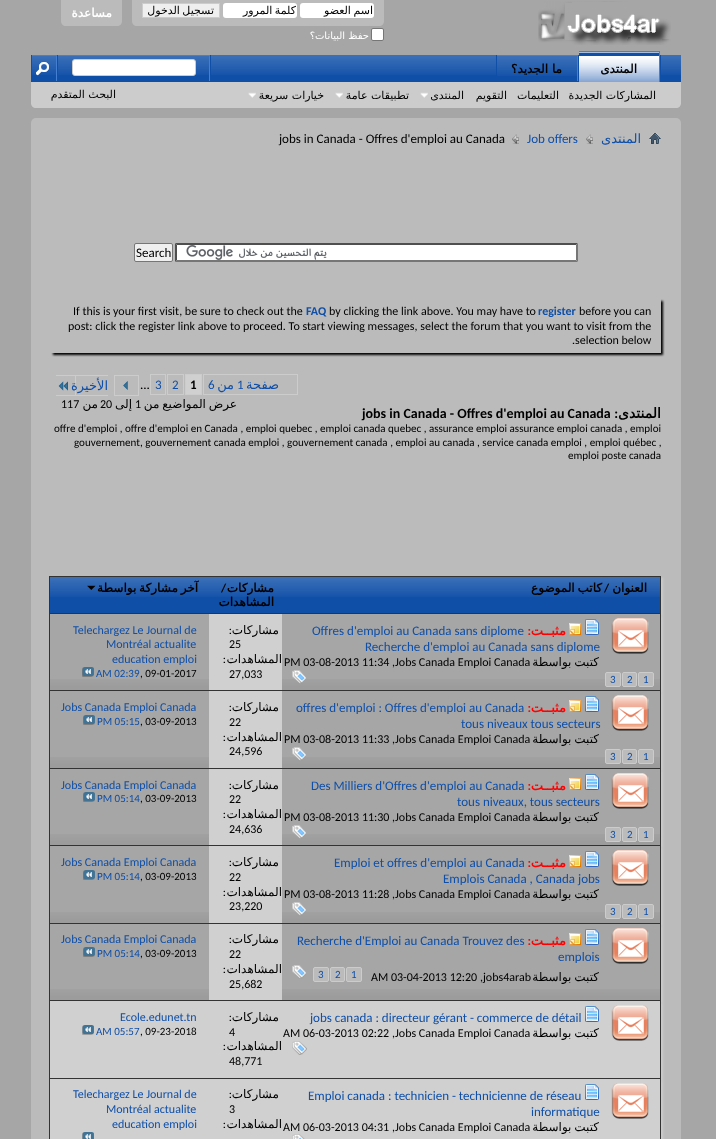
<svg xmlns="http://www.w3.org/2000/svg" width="716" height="1139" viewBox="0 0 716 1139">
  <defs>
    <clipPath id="clip1"><path d="M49 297H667V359H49ZM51 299H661V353H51Z" clip-rule="evenodd"/></clipPath>
    <filter id="blur1" x="-50%" y="-200%" width="200%" height="500%"><feGaussianBlur stdDeviation="1"/></filter>
  </defs>
  <rect width="100%" height="100%" fill="#a6a6a6"/>
  <path d="M61 0H122V21C122 24 120 26 117 26H66C63 26 61 24 61 21Z" fill="#bbbbbb"/>
  <text x="112" y="17" font-family="DejaVu Sans" font-size="12" font-weight="bold" direction="rtl" fill="#ffffff">مساعدة</text>
  <path d="M132 0H384V21C384 24 382 26 379 26H137C134 26 132 24 132 21Z" fill="#bbbbbb"/>
  <rect x="142.5" y="3.5" width="77" height="14" fill="#efefef" stroke="#cccccc"/>
  <text x="214" y="14" word-spacing="-1" font-family="DejaVu Sans" font-size="11" direction="rtl" fill="#000000">تسجيل الدخول</text>
  <rect x="223" y="3" width="74" height="15" rx="3" fill="#ffffff"/>
  <text x="296" y="14" word-spacing="-1" font-family="DejaVu Sans" font-size="11" direction="rtl" fill="#000000">كلمة المرور</text>
  <rect x="300" y="3" width="74" height="15" rx="3" fill="#ffffff"/>
  <text x="373" y="14" word-spacing="-1" font-family="DejaVu Sans" font-size="11" direction="rtl" fill="#000000">اسم العضو</text>
  <text x="369" y="39" font-family="DejaVu Sans" font-size="10" direction="rtl" fill="#ffffff">حفظ البيانات؟</text>
  <rect x="371.5" y="28.5" width="12" height="12" rx="1.5" fill="#ffffff" stroke="#767676"/>
  <image x="538" y="1" width="133" height="44" href="img1.png"/>
  <path d="M31 55H681V103C681 106 679 108 676 108H36C33 108 31 106 31 103Z" fill="#cccccc"/>
  <rect x="31" y="55" width="650" height="26" fill="#0f4fa8"/>
  <image x="32" y="55" width="649" height="20" href="img3.png"/>
  <rect x="57" y="55" width="1" height="26" fill="#0f4fa8"/>
  <rect x="32" y="55" width="25" height="1" fill="#4380d3"/>
  <rect x="56" y="55" width="1" height="26" fill="#4380d3"/>
  <image x="36" y="62" width="13" height="14" href="img2.png"/>
  <rect x="210" y="55" width="1" height="26" fill="#0f4fa8"/>
  <rect x="58" y="55" width="152" height="1" fill="#4380d3"/>
  <rect x="209" y="55" width="1" height="26" fill="#4380d3"/>
  <rect x="72.5" y="59.5" width="123" height="16" rx="2.5" fill="#ffffff" stroke="#cccccc"/>
  <text x="116" y="98" font-family="DejaVu Sans" font-size="11" direction="rtl" fill="#000000">البحث المتقدم</text>
  <rect x="496" y="55" width="1" height="27" fill="#0f4fa8"/>
  <rect x="497" y="56" width="80" height="19" fill="#0f4fa8"/>
  <image x="497" y="56" width="80" height="20" href="img4.png"/>
  <rect x="497" y="55" width="81" height="1" fill="#4380d3"/>
  <rect x="577" y="55" width="1" height="27" fill="#4380d3"/>
  <text x="562" y="73" font-family="DejaVu Sans" font-size="12" font-weight="bold" direction="rtl" fill="#000000">ما الجديد؟</text>
  <rect x="660" y="55" width="1" height="26" fill="#0f4fa8"/>
  <rect x="578" y="55" width="1" height="26" fill="#0f4fa8"/>
  <rect x="579" y="52" width="80" height="23" fill="#0f4fa8"/>
  <rect x="31" y="81" width="650" height="1" fill="#0f4fa8"/>
  <image x="579" y="52" width="80" height="30" href="img5.png"/>
  <rect x="579" y="51" width="81" height="1" fill="#4380d3"/>
  <rect x="659" y="51" width="1" height="31" fill="#4380d3"/>
  <text x="637" y="73" font-family="DejaVu Sans" font-size="12" font-weight="bold" direction="rtl" fill="#000000">المنتدى</text>
  <image x="248" y="92" width="8" height="6" href="img6.png"/>
  <text x="324" y="99" font-family="DejaVu Sans" font-size="11" direction="rtl" fill="#000000">خيارات سريعة</text>
  <image x="335" y="92" width="8" height="6" href="img6.png"/>
  <text x="409" y="99" font-family="DejaVu Sans" font-size="11" direction="rtl" fill="#000000">تطبيقات عامة</text>
  <image x="420" y="92" width="8" height="6" href="img6.png"/>
  <text x="464" y="99" font-family="DejaVu Sans" font-size="11" direction="rtl" fill="#000000">المنتدى</text>
  <text x="507" y="99" font-family="DejaVu Sans" font-size="11" direction="rtl" fill="#000000">التقويم</text>
  <text x="559" y="99" font-family="DejaVu Sans" font-size="11" direction="rtl" fill="#000000">التعليمات</text>
  <text x="656" y="99" font-family="DejaVu Sans" font-size="11" direction="rtl" fill="#000000">المشاركات الجديدة</text>
  <rect x="31" y="118" width="650" height="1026" rx="5" fill="#bbbbbb"/>
  <text x="279" y="143" font-family="Carlito" font-size="13" fill="#000000">jobs in Canada - Offres d'emploi au Canada</text>
  <image x="512" y="134" width="7" height="10" href="img7.png"/>
  <text x="527" y="143" font-family="Carlito" font-size="13" fill="#0f4fa8">Job offers</text>
  <image x="586" y="134" width="7" height="10" href="img7.png"/>
  <text x="641" y="143" font-family="DejaVu Sans" font-size="13" direction="rtl" fill="#0f4fa8">المنتدى</text>
  <image x="649" y="133" width="12" height="11" href="img8.png"/>
  <rect x="134.5" y="243.5" width="38" height="18" rx="1.5" fill="#efefef" stroke="#767676"/>
  <text x="136" y="257" font-family="Carlito" font-size="13" fill="#000000">Search</text>
  <rect x="175" y="243" width="403" height="19" fill="#ffffff"/>
  <image x="186" y="245" width="141" height="15" href="img9.png"/>
  <path d="M175 243H578L576 245H177Z" fill="#4f4f4f"/>
  <path d="M578 243V262L576 260V245Z" fill="#767676"/>
  <path d="M578 262H175L177 260H576Z" fill="#767676"/>
  <path d="M175 262V243L177 245V260Z" fill="#4f4f4f"/>
  <g clip-path="url(#clip1)">
    <rect x="53" y="301" width="610" height="54" fill="#000000" filter="url(#blur1)"/>
  </g>
  <text x="73" y="315" font-family="Carlito" font-size="12" fill="#000000">If this is your first visit, be sure to check out the</text>
  <text x="306" y="315" font-family="Carlito" font-size="12" font-weight="bold" fill="#0f4fa8">FAQ</text>
  <text x="329" y="315" font-family="Carlito" font-size="12" fill="#000000">by clicking the link above. You may have to</text>
  <text x="538" y="315" font-family="Carlito" font-size="12" font-weight="bold" fill="#0f4fa8">register</text>
  <text x="579" y="315" font-family="Carlito" font-size="12" fill="#000000">before you can</text>
  <text x="68" y="330" font-family="Carlito" font-size="12" fill="#000000">post: click the register link above to proceed. To start viewing messages, select the forum that you want to visit from the</text>
  <text x="572" y="344" font-family="Carlito" font-size="12" fill="#000000">.selection below</text>
  <image x="58" y="381" width="10" height="10" href="img10.png"/>
  <rect x="56" y="375" width="52" height="1" fill="#cccccc"/>
  <rect x="75" y="375" width="1" height="21" fill="#cccccc"/>
  <text x="108" y="390" font-family="DejaVu Sans" font-size="13" direction="rtl" fill="#0f4fa8">الأخيرة</text>
  <rect x="76" y="395" width="32" height="1" fill="#cccccc"/>
  <rect x="56" y="395" width="20" height="1" fill="#cccccc"/>
  <rect x="114.5" y="375.5" width="24" height="20" fill="none" stroke="#cccccc"/>
  <image x="123" y="381" width="5" height="9" href="img11.png"/>
  <text x="140" y="389" font-family="Carlito" font-size="13" fill="#000000">...</text>
  <rect x="150.5" y="374.5" width="15" height="20" fill="none" stroke="#cccccc"/>
  <text x="155" y="389" font-family="Carlito" font-size="13" fill="#0f4fa8">3</text>
  <rect x="167.5" y="374.5" width="16" height="20" fill="none" stroke="#cccccc"/>
  <text x="172" y="389" font-family="Carlito" font-size="13" fill="#0f4fa8">2</text>
  <rect x="185.5" y="374.5" width="16" height="20" fill="#d0d0d0" stroke="#cccccc"/>
  <text x="190" y="389" font-family="Carlito" font-size="13" font-weight="bold" fill="#000000">1</text>
  <text x="208" y="389" font-family="Carlito" font-size="13" fill="#0f4fa8">6</text>
  <rect x="203" y="394" width="41" height="1" fill="#cccccc"/>
  <rect x="203" y="374" width="95" height="1" fill="#cccccc"/>
  <rect x="203" y="374" width="1" height="21" fill="#cccccc"/>
  <text x="234" y="389" font-family="DejaVu Sans" font-size="13" direction="rtl" fill="#0f4fa8">من</text>
  <text x="237" y="389" font-family="Carlito" font-size="13" fill="#0f4fa8">1</text>
  <text x="279" y="389" font-family="DejaVu Sans" font-size="13" direction="rtl" fill="#0f4fa8">صفحة</text>
  <rect x="297" y="374" width="1" height="21" fill="#cccccc"/>
  <rect x="244" y="394" width="54" height="1" fill="#cccccc"/>
  <text x="61" y="408" font-family="Carlito" font-size="12" fill="#000000">117</text>
  <text x="98" y="408" font-family="DejaVu Sans" font-size="12" direction="rtl" fill="#000000">من</text>
  <text x="100" y="408" font-family="Carlito" font-size="12" fill="#000000">20</text>
  <text x="132" y="408" font-family="DejaVu Sans" font-size="12" direction="rtl" fill="#000000">إلى</text>
  <text x="135" y="408" font-family="Carlito" font-size="12" fill="#000000">1</text>
  <text x="237" y="408" word-spacing="-1" font-family="DejaVu Sans" font-size="12" direction="rtl" fill="#000000">عرض المواضيع من</text>
  <text x="362" y="418" font-family="Carlito" font-size="14" font-weight="bold" fill="#000000">jobs in Canada - Offres d'emploi au Canada</text>
  <text x="618" y="418" font-family="Carlito" font-size="14" font-weight="bold" direction="rtl" fill="#000000">:</text>
  <text x="661" y="418" font-family="DejaVu Sans" font-size="14" font-weight="bold" direction="rtl" fill="#000000">المنتدى</text>
  <text x="54" y="432" font-family="Carlito" font-size="11.05" fill="#000000">offre d'emploi , offre d'emploi en Canada , emploi quebec , emploi canada quebec , assurance emploi assurance emploi canada , emploi</text>
  <text x="74" y="446" font-family="Carlito" font-size="11.05" fill="#000000">gouvernement, gouvernement canada emploi , gouvernement canada , emploi au canada , service canada emploi , emploi québec ,</text>
  <text x="568" y="459" font-family="Carlito" font-size="11.05" fill="#000000">emploi poste canada</text>
  <rect x="51" y="578" width="612" height="38" fill="#cccccc" filter="url(#blur1)"/>
  <rect x="50" y="577" width="610" height="36" fill="#0f4fa8"/>
  <image x="50" y="577" width="610" height="20" href="img12.png"/>
  <rect x="49.5" y="576.5" width="611" height="37" fill="none" stroke="#333333"/>
  <image x="87" y="585" width="9" height="5" href="img13.png"/>
  <text x="198" y="592" word-spacing="-1" font-family="DejaVu Sans" font-size="12" font-weight="bold" direction="rtl" fill="#000000">آخر مشاركة بواسطة</text>
  <text x="221" y="592" font-family="Carlito" font-size="12" font-weight="bold" fill="#000000">/</text>
  <text x="274" y="592" font-family="DejaVu Sans" font-size="12" font-weight="bold" direction="rtl" fill="#000000">مشاركات</text>
  <text x="274" y="606" font-family="DejaVu Sans" font-size="12" font-weight="bold" direction="rtl" fill="#000000">المشاهدات</text>
  <text x="602" y="592" word-spacing="-1" font-family="DejaVu Sans" font-size="12" font-weight="bold" direction="rtl" fill="#000000">كاتب الموضوع</text>
  <text x="604" y="592" font-family="Carlito" font-size="12" font-weight="bold" fill="#000000">/</text>
  <text x="647" y="592" font-family="DejaVu Sans" font-size="12" font-weight="bold" direction="rtl" fill="#000000">العنوان</text>
  <rect x="53" y="616" width="610" height="77" fill="#cccccc" filter="url(#blur1)"/>
  <rect x="50" y="614" width="610" height="76" fill="#a6a6a6"/>
  <image x="50" y="679" width="610" height="11" href="img14.png"/>
  <rect x="660" y="614" width="1" height="77" fill="#333333"/>
  <rect x="49" y="690" width="612" height="1" fill="#333333"/>
  <rect x="49" y="614" width="1" height="77" fill="#333333"/>
  <text x="73" y="634" font-family="Carlito" font-size="12" fill="#0f4fa8">Telechargez Le Journal de</text>
  <text x="106" y="648" font-family="Carlito" font-size="12" fill="#0f4fa8">Montréal actualite</text>
  <text x="112" y="663" font-family="Carlito" font-size="12" fill="#0f4fa8">education emploi</text>
  <image x="82" y="667" width="12" height="10" href="img15.png"/>
  <text x="96" y="677" font-family="Carlito" font-size="11" fill="#0f4fa8">AM 02:39</text>
  <text x="140" y="677" font-family="Carlito" font-size="11" fill="#000000">, 09-01-2017</text>
  <rect x="209" y="614" width="73" height="76" fill="#d0d0d0"/>
  <text x="232" y="634" font-family="Carlito" font-size="12" direction="rtl" fill="#000000">:</text>
  <text x="279" y="634" font-family="DejaVu Sans" font-size="12" direction="rtl" fill="#000000">مشاركات</text>
  <text x="229" y="648" font-family="Carlito" font-size="12" fill="#000000">25</text>
  <text x="226" y="663" font-family="Carlito" font-size="12" direction="rtl" fill="#000000">:</text>
  <text x="282" y="663" font-family="DejaVu Sans" font-size="12" direction="rtl" fill="#000000">المشاهدات</text>
  <text x="229" y="678" font-family="Carlito" font-size="12" fill="#000000">27,033</text>
  <image x="611" y="618" width="38" height="36" href="img16.png"/>
  <text x="312" y="635" font-family="Carlito" font-size="13" fill="#0f4fa8">Offres d'emploi au Canada sans diplome</text>
  <text x="531" y="635" font-family="Carlito" font-size="13" font-weight="bold" direction="rtl" fill="#ff0000">:</text>
  <text x="566" y="635" font-family="DejaVu Sans" font-size="13" font-weight="bold" direction="rtl" fill="#ff0000">مثبــت</text>
  <image x="569" y="623" width="12" height="12" href="img17.png"/>
  <image x="585" y="619" width="14" height="16" href="img18.png"/>
  <text x="365" y="651" font-family="Carlito" font-size="13" fill="#0f4fa8">Recherche d'emploi au Canada sans diplome</text>
  <text x="284" y="666" font-family="Carlito" font-size="12" fill="#000000">PM 03-08-2013 11:34</text>
  <text x="395" y="666" font-family="Carlito" font-size="12" direction="rtl" fill="#000000">,</text>
  <text x="395" y="666" font-family="Carlito" font-size="12" fill="#000000">Jobs Canada Emploi Canada</text>
  <text x="599" y="666" word-spacing="-1" font-family="DejaVu Sans" font-size="12" direction="rtl" fill="#000000">كتبت بواسطة</text>
  <image x="292" y="670" width="14" height="14" href="img19.png"/>
  <rect x="605.5" y="672.5" width="15" height="14" rx="1.5" fill="#bbbbbb" stroke="#cccccc"/>
  <text x="610" y="683" font-family="Carlito" font-size="11" fill="#0f4fa8">3</text>
  <rect x="622.5" y="672.5" width="14" height="14" rx="1.5" fill="#bbbbbb" stroke="#cccccc"/>
  <text x="627" y="683" font-family="Carlito" font-size="11" fill="#0f4fa8">2</text>
  <rect x="638.5" y="672.5" width="15" height="14" rx="1.5" fill="#bbbbbb" stroke="#cccccc"/>
  <text x="643" y="683" font-family="Carlito" font-size="11" fill="#0f4fa8">1</text>
  <rect x="53" y="693" width="610" height="78" fill="#cccccc" filter="url(#blur1)"/>
  <rect x="50" y="691" width="610" height="77" fill="#a6a6a6"/>
  <image x="50" y="757" width="610" height="11" href="img14.png"/>
  <rect x="660" y="691" width="1" height="78" fill="#333333"/>
  <rect x="49" y="768" width="612" height="1" fill="#333333"/>
  <rect x="49" y="691" width="1" height="78" fill="#333333"/>
  <text x="61" y="711" font-family="Carlito" font-size="12" fill="#0f4fa8">Jobs Canada Emploi Canada</text>
  <image x="83" y="715" width="12" height="10" href="img15.png"/>
  <text x="97" y="725" font-family="Carlito" font-size="11" fill="#0f4fa8">PM 05:15</text>
  <text x="140" y="725" font-family="Carlito" font-size="11" fill="#000000">, 03-09-2013</text>
  <rect x="209" y="691" width="73" height="77" fill="#d0d0d0"/>
  <text x="232" y="711" font-family="Carlito" font-size="12" direction="rtl" fill="#000000">:</text>
  <text x="279" y="711" font-family="DejaVu Sans" font-size="12" direction="rtl" fill="#000000">مشاركات</text>
  <text x="229" y="726" font-family="Carlito" font-size="12" fill="#000000">22</text>
  <text x="226" y="741" font-family="Carlito" font-size="12" direction="rtl" fill="#000000">:</text>
  <text x="282" y="741" font-family="DejaVu Sans" font-size="12" direction="rtl" fill="#000000">المشاهدات</text>
  <text x="229" y="755" font-family="Carlito" font-size="12" fill="#000000">24,596</text>
  <image x="611" y="695" width="38" height="36" href="img16.png"/>
  <text x="296" y="712" font-family="Carlito" font-size="13" fill="#0f4fa8">offres d'emploi : Offres d'emploi au Canada</text>
  <text x="531" y="712" font-family="Carlito" font-size="13" font-weight="bold" direction="rtl" fill="#ff0000">:</text>
  <text x="566" y="712" font-family="DejaVu Sans" font-size="13" font-weight="bold" direction="rtl" fill="#ff0000">مثبــت</text>
  <image x="569" y="700" width="12" height="12" href="img17.png"/>
  <image x="585" y="696" width="14" height="16" href="img18.png"/>
  <text x="461" y="728" font-family="Carlito" font-size="13" fill="#0f4fa8">tous niveaux tous secteurs</text>
  <text x="284" y="743" font-family="Carlito" font-size="12" fill="#000000">PM 03-08-2013 11:33</text>
  <text x="395" y="743" font-family="Carlito" font-size="12" direction="rtl" fill="#000000">,</text>
  <text x="395" y="743" font-family="Carlito" font-size="12" fill="#000000">Jobs Canada Emploi Canada</text>
  <text x="599" y="743" word-spacing="-1" font-family="DejaVu Sans" font-size="12" direction="rtl" fill="#000000">كتبت بواسطة</text>
  <image x="292" y="747" width="14" height="14" href="img20.png"/>
  <rect x="605.5" y="749.5" width="15" height="14" rx="1.5" fill="#bbbbbb" stroke="#cccccc"/>
  <text x="610" y="760" font-family="Carlito" font-size="11" fill="#0f4fa8">3</text>
  <rect x="622.5" y="749.5" width="14" height="14" rx="1.5" fill="#bbbbbb" stroke="#cccccc"/>
  <text x="627" y="760" font-family="Carlito" font-size="11" fill="#0f4fa8">2</text>
  <rect x="638.5" y="749.5" width="15" height="14" rx="1.5" fill="#bbbbbb" stroke="#cccccc"/>
  <text x="643" y="760" font-family="Carlito" font-size="11" fill="#0f4fa8">1</text>
  <rect x="53" y="771" width="610" height="77" fill="#cccccc" filter="url(#blur1)"/>
  <rect x="50" y="769" width="610" height="76" fill="#a6a6a6"/>
  <image x="50" y="834" width="610" height="11" href="img14.png"/>
  <rect x="660" y="769" width="1" height="77" fill="#333333"/>
  <rect x="49" y="845" width="612" height="1" fill="#333333"/>
  <rect x="49" y="769" width="1" height="77" fill="#333333"/>
  <text x="61" y="789" font-family="Carlito" font-size="12" fill="#0f4fa8">Jobs Canada Emploi Canada</text>
  <image x="83" y="792" width="12" height="10" href="img15.png"/>
  <text x="97" y="802" font-family="Carlito" font-size="11" fill="#0f4fa8">PM 05:14</text>
  <text x="140" y="802" font-family="Carlito" font-size="11" fill="#000000">, 03-09-2013</text>
  <rect x="209" y="769" width="73" height="76" fill="#d0d0d0"/>
  <text x="232" y="789" font-family="Carlito" font-size="12" direction="rtl" fill="#000000">:</text>
  <text x="279" y="789" font-family="DejaVu Sans" font-size="12" direction="rtl" fill="#000000">مشاركات</text>
  <text x="229" y="803" font-family="Carlito" font-size="12" fill="#000000">22</text>
  <text x="226" y="818" font-family="Carlito" font-size="12" direction="rtl" fill="#000000">:</text>
  <text x="282" y="818" font-family="DejaVu Sans" font-size="12" direction="rtl" fill="#000000">المشاهدات</text>
  <text x="229" y="833" font-family="Carlito" font-size="12" fill="#000000">24,636</text>
  <image x="611" y="773" width="38" height="36" href="img16.png"/>
  <text x="311" y="790" font-family="Carlito" font-size="13" fill="#0f4fa8">Des Milliers d'Offres d'emploi au Canada</text>
  <text x="531" y="790" font-family="Carlito" font-size="13" font-weight="bold" direction="rtl" fill="#ff0000">:</text>
  <text x="566" y="790" font-family="DejaVu Sans" font-size="13" font-weight="bold" direction="rtl" fill="#ff0000">مثبــت</text>
  <image x="569" y="778" width="12" height="12" href="img17.png"/>
  <image x="585" y="774" width="14" height="16" href="img18.png"/>
  <text x="457" y="806" font-family="Carlito" font-size="13" fill="#0f4fa8">tous niveaux, tous secteurs</text>
  <text x="284" y="821" font-family="Carlito" font-size="12" fill="#000000">PM 03-08-2013 11:30</text>
  <text x="395" y="821" font-family="Carlito" font-size="12" direction="rtl" fill="#000000">,</text>
  <text x="395" y="821" font-family="Carlito" font-size="12" fill="#000000">Jobs Canada Emploi Canada</text>
  <text x="599" y="821" word-spacing="-1" font-family="DejaVu Sans" font-size="12" direction="rtl" fill="#000000">كتبت بواسطة</text>
  <image x="292" y="825" width="14" height="14" href="img19.png"/>
  <rect x="605.5" y="827.5" width="15" height="14" rx="1.5" fill="#bbbbbb" stroke="#cccccc"/>
  <text x="610" y="838" font-family="Carlito" font-size="11" fill="#0f4fa8">3</text>
  <rect x="622.5" y="827.5" width="14" height="14" rx="1.5" fill="#bbbbbb" stroke="#cccccc"/>
  <text x="627" y="838" font-family="Carlito" font-size="11" fill="#0f4fa8">2</text>
  <rect x="638.5" y="827.5" width="15" height="14" rx="1.5" fill="#bbbbbb" stroke="#cccccc"/>
  <text x="643" y="838" font-family="Carlito" font-size="11" fill="#0f4fa8">1</text>
  <rect x="53" y="848" width="610" height="78" fill="#cccccc" filter="url(#blur1)"/>
  <rect x="50" y="846" width="610" height="77" fill="#a6a6a6"/>
  <image x="50" y="912" width="610" height="11" href="img14.png"/>
  <rect x="660" y="846" width="1" height="78" fill="#333333"/>
  <rect x="49" y="923" width="612" height="1" fill="#333333"/>
  <rect x="49" y="846" width="1" height="78" fill="#333333"/>
  <text x="61" y="866" font-family="Carlito" font-size="12" fill="#0f4fa8">Jobs Canada Emploi Canada</text>
  <image x="83" y="870" width="12" height="10" href="img15.png"/>
  <text x="97" y="880" font-family="Carlito" font-size="11" fill="#0f4fa8">PM 05:14</text>
  <text x="140" y="880" font-family="Carlito" font-size="11" fill="#000000">, 03-09-2013</text>
  <rect x="209" y="846" width="73" height="77" fill="#d0d0d0"/>
  <text x="232" y="866" font-family="Carlito" font-size="12" direction="rtl" fill="#000000">:</text>
  <text x="279" y="866" font-family="DejaVu Sans" font-size="12" direction="rtl" fill="#000000">مشاركات</text>
  <text x="229" y="881" font-family="Carlito" font-size="12" fill="#000000">22</text>
  <text x="226" y="896" font-family="Carlito" font-size="12" direction="rtl" fill="#000000">:</text>
  <text x="282" y="896" font-family="DejaVu Sans" font-size="12" direction="rtl" fill="#000000">المشاهدات</text>
  <text x="229" y="910" font-family="Carlito" font-size="12" fill="#000000">23,220</text>
  <image x="611" y="850" width="38" height="36" href="img16.png"/>
  <text x="334" y="867" font-family="Carlito" font-size="13" fill="#0f4fa8">Emploi et offres d'emploi au Canada</text>
  <text x="531" y="867" font-family="Carlito" font-size="13" font-weight="bold" direction="rtl" fill="#ff0000">:</text>
  <text x="566" y="867" font-family="DejaVu Sans" font-size="13" font-weight="bold" direction="rtl" fill="#ff0000">مثبــت</text>
  <image x="569" y="855" width="12" height="12" href="img17.png"/>
  <image x="585" y="851" width="14" height="16" href="img18.png"/>
  <text x="443" y="883" font-family="Carlito" font-size="13" fill="#0f4fa8">Emplois Canada , Canada jobs</text>
  <text x="284" y="898" font-family="Carlito" font-size="12" fill="#000000">PM 03-08-2013 11:28</text>
  <text x="395" y="898" font-family="Carlito" font-size="12" direction="rtl" fill="#000000">,</text>
  <text x="395" y="898" font-family="Carlito" font-size="12" fill="#000000">Jobs Canada Emploi Canada</text>
  <text x="599" y="898" word-spacing="-1" font-family="DejaVu Sans" font-size="12" direction="rtl" fill="#000000">كتبت بواسطة</text>
  <image x="292" y="902" width="14" height="14" href="img20.png"/>
  <rect x="605.5" y="904.5" width="15" height="14" rx="1.5" fill="#bbbbbb" stroke="#cccccc"/>
  <text x="610" y="915" font-family="Carlito" font-size="11" fill="#0f4fa8">3</text>
  <rect x="622.5" y="904.5" width="14" height="14" rx="1.5" fill="#bbbbbb" stroke="#cccccc"/>
  <text x="627" y="915" font-family="Carlito" font-size="11" fill="#0f4fa8">2</text>
  <rect x="638.5" y="904.5" width="15" height="14" rx="1.5" fill="#bbbbbb" stroke="#cccccc"/>
  <text x="643" y="915" font-family="Carlito" font-size="11" fill="#0f4fa8">1</text>
  <rect x="53" y="926" width="610" height="77" fill="#cccccc" filter="url(#blur1)"/>
  <rect x="50" y="924" width="610" height="76" fill="#a6a6a6"/>
  <image x="50" y="989" width="610" height="11" href="img14.png"/>
  <rect x="660" y="924" width="1" height="77" fill="#333333"/>
  <rect x="49" y="1000" width="612" height="1" fill="#333333"/>
  <rect x="49" y="924" width="1" height="77" fill="#333333"/>
  <text x="61" y="943" font-family="Carlito" font-size="12" fill="#0f4fa8">Jobs Canada Emploi Canada</text>
  <image x="83" y="947" width="12" height="10" href="img15.png"/>
  <text x="97" y="957" font-family="Carlito" font-size="11" fill="#0f4fa8">PM 05:14</text>
  <text x="140" y="957" font-family="Carlito" font-size="11" fill="#000000">, 03-09-2013</text>
  <rect x="209" y="924" width="73" height="76" fill="#d0d0d0"/>
  <text x="232" y="943" font-family="Carlito" font-size="12" direction="rtl" fill="#000000">:</text>
  <text x="279" y="943" font-family="DejaVu Sans" font-size="12" direction="rtl" fill="#000000">مشاركات</text>
  <text x="229" y="958" font-family="Carlito" font-size="12" fill="#000000">22</text>
  <text x="226" y="973" font-family="Carlito" font-size="12" direction="rtl" fill="#000000">:</text>
  <text x="282" y="973" font-family="DejaVu Sans" font-size="12" direction="rtl" fill="#000000">المشاهدات</text>
  <text x="229" y="988" font-family="Carlito" font-size="12" fill="#000000">25,682</text>
  <text x="297" y="945" font-family="Carlito" font-size="13" fill="#0f4fa8">Recherche d'Emploi au Canada Trouvez des</text>
  <text x="531" y="945" font-family="Carlito" font-size="13" font-weight="bold" direction="rtl" fill="#ff0000">:</text>
  <text x="566" y="945" font-family="DejaVu Sans" font-size="13" font-weight="bold" direction="rtl" fill="#ff0000">مثبــت</text>
  <image x="569" y="933" width="12" height="12" href="img17.png"/>
  <image x="585" y="929" width="14" height="16" href="img18.png"/>
  <text x="558" y="961" font-family="Carlito" font-size="13" fill="#0f4fa8">emplois</text>
  <image x="292" y="965" width="14" height="14" href="img21.png"/>
  <rect x="313.5" y="967.5" width="15" height="14" rx="1.5" fill="#bbbbbb" stroke="#cccccc"/>
  <text x="318" y="978" font-family="Carlito" font-size="11" fill="#0f4fa8">3</text>
  <rect x="330.5" y="967.5" width="14" height="14" rx="1.5" fill="#bbbbbb" stroke="#cccccc"/>
  <text x="335" y="978" font-family="Carlito" font-size="11" fill="#0f4fa8">2</text>
  <rect x="346.5" y="967.5" width="15" height="14" rx="1.5" fill="#bbbbbb" stroke="#cccccc"/>
  <text x="351" y="978" font-family="Carlito" font-size="11" fill="#0f4fa8">1</text>
  <text x="371" y="981" font-family="Carlito" font-size="12" fill="#000000">AM 03-04-2013 12:20</text>
  <text x="483" y="981" font-family="Carlito" font-size="12" direction="rtl" fill="#000000">,</text>
  <text x="483" y="981" font-family="Carlito" font-size="12" fill="#000000">jobs4arab</text>
  <text x="599" y="981" word-spacing="-1" font-family="DejaVu Sans" font-size="12" direction="rtl" fill="#000000">كتبت بواسطة</text>
  <image x="611" y="928" width="38" height="36" href="img16.png"/>
  <rect x="53" y="1003" width="610" height="78" fill="#cccccc" filter="url(#blur1)"/>
  <rect x="50" y="1001" width="610" height="77" fill="#d0d0d0"/>
  <rect x="660" y="1001" width="1" height="78" fill="#333333"/>
  <rect x="49" y="1078" width="612" height="1" fill="#333333"/>
  <rect x="49" y="1001" width="1" height="78" fill="#333333"/>
  <text x="120" y="1021" font-family="Carlito" font-size="12" fill="#0f4fa8">Ecole.edunet.tn</text>
  <image x="82" y="1025" width="12" height="10" href="img22.png"/>
  <text x="96" y="1035" font-family="Carlito" font-size="11" fill="#0f4fa8">AM 05:57</text>
  <text x="140" y="1035" font-family="Carlito" font-size="11" fill="#000000">, 09-23-2018</text>
  <text x="232" y="1021" font-family="Carlito" font-size="12" direction="rtl" fill="#000000">:</text>
  <text x="279" y="1021" font-family="DejaVu Sans" font-size="12" direction="rtl" fill="#000000">مشاركات</text>
  <text x="229" y="1036" font-family="Carlito" font-size="12" fill="#000000">4</text>
  <text x="226" y="1050" font-family="Carlito" font-size="12" direction="rtl" fill="#000000">:</text>
  <text x="282" y="1050" font-family="DejaVu Sans" font-size="12" direction="rtl" fill="#000000">المشاهدات</text>
  <text x="229" y="1065" font-family="Carlito" font-size="12" fill="#000000">48,771</text>
  <text x="310" y="1022" font-family="Carlito" font-size="13" fill="#0f4fa8">jobs canada : directeur gérant - commerce de détail</text>
  <image x="585" y="1006" width="14" height="16" href="img23.png"/>
  <text x="283" y="1037" font-family="Carlito" font-size="12" fill="#000000">AM 06-03-2013 02:22</text>
  <text x="395" y="1037" font-family="Carlito" font-size="12" direction="rtl" fill="#000000">,</text>
  <text x="395" y="1037" font-family="Carlito" font-size="12" fill="#000000">Jobs Canada Emploi Canada</text>
  <text x="599" y="1037" word-spacing="-1" font-family="DejaVu Sans" font-size="12" direction="rtl" fill="#000000">كتبت بواسطة</text>
  <image x="292" y="1041" width="15" height="14" href="img24.png"/>
  <image x="611" y="1005" width="38" height="36" href="img25.png"/>
  <rect x="53" y="1081" width="610" height="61" fill="#cccccc" filter="url(#blur1)"/>
  <rect x="50" y="1079" width="610" height="60" fill="#d0d0d0"/>
  <rect x="660" y="1079" width="1" height="60" fill="#333333"/>
  <rect x="49" y="1079" width="1" height="60" fill="#333333"/>
  <text x="73" y="1098" font-family="Carlito" font-size="12" fill="#0f4fa8">Telechargez Le Journal de</text>
  <text x="106" y="1113" font-family="Carlito" font-size="12" fill="#0f4fa8">Montréal actualite</text>
  <text x="112" y="1128" font-family="Carlito" font-size="12" fill="#0f4fa8">education emploi</text>
  <image x="82" y="1132" width="12" height="7" href="img26.png"/>
  <text x="232" y="1098" font-family="Carlito" font-size="12" direction="rtl" fill="#000000">:</text>
  <text x="279" y="1098" font-family="DejaVu Sans" font-size="12" direction="rtl" fill="#000000">مشاركات</text>
  <text x="229" y="1113" font-family="Carlito" font-size="12" fill="#000000">3</text>
  <text x="226" y="1128" font-family="Carlito" font-size="12" direction="rtl" fill="#000000">:</text>
  <text x="282" y="1128" font-family="DejaVu Sans" font-size="12" direction="rtl" fill="#000000">المشاهدات</text>
  <text x="308" y="1100" font-family="Carlito" font-size="13" fill="#0f4fa8">Emploi canada : technicien - technicienne de réseau</text>
  <image x="585" y="1084" width="14" height="16" href="img23.png"/>
  <text x="531" y="1116" font-family="Carlito" font-size="13" fill="#0f4fa8">informatique</text>
  <text x="283" y="1131" font-family="Carlito" font-size="12" fill="#000000">AM 06-03-2013 04:31</text>
  <text x="395" y="1131" font-family="Carlito" font-size="12" direction="rtl" fill="#000000">,</text>
  <text x="395" y="1131" font-family="Carlito" font-size="12" fill="#000000">Jobs Canada Emploi Canada</text>
  <text x="599" y="1131" word-spacing="-1" font-family="DejaVu Sans" font-size="12" direction="rtl" fill="#000000">كتبت بواسطة</text>
  <image x="292" y="1134" width="13" height="5" href="img27.png"/>
  <image x="611" y="1083" width="38" height="36" href="img25.png"/>
</svg>
